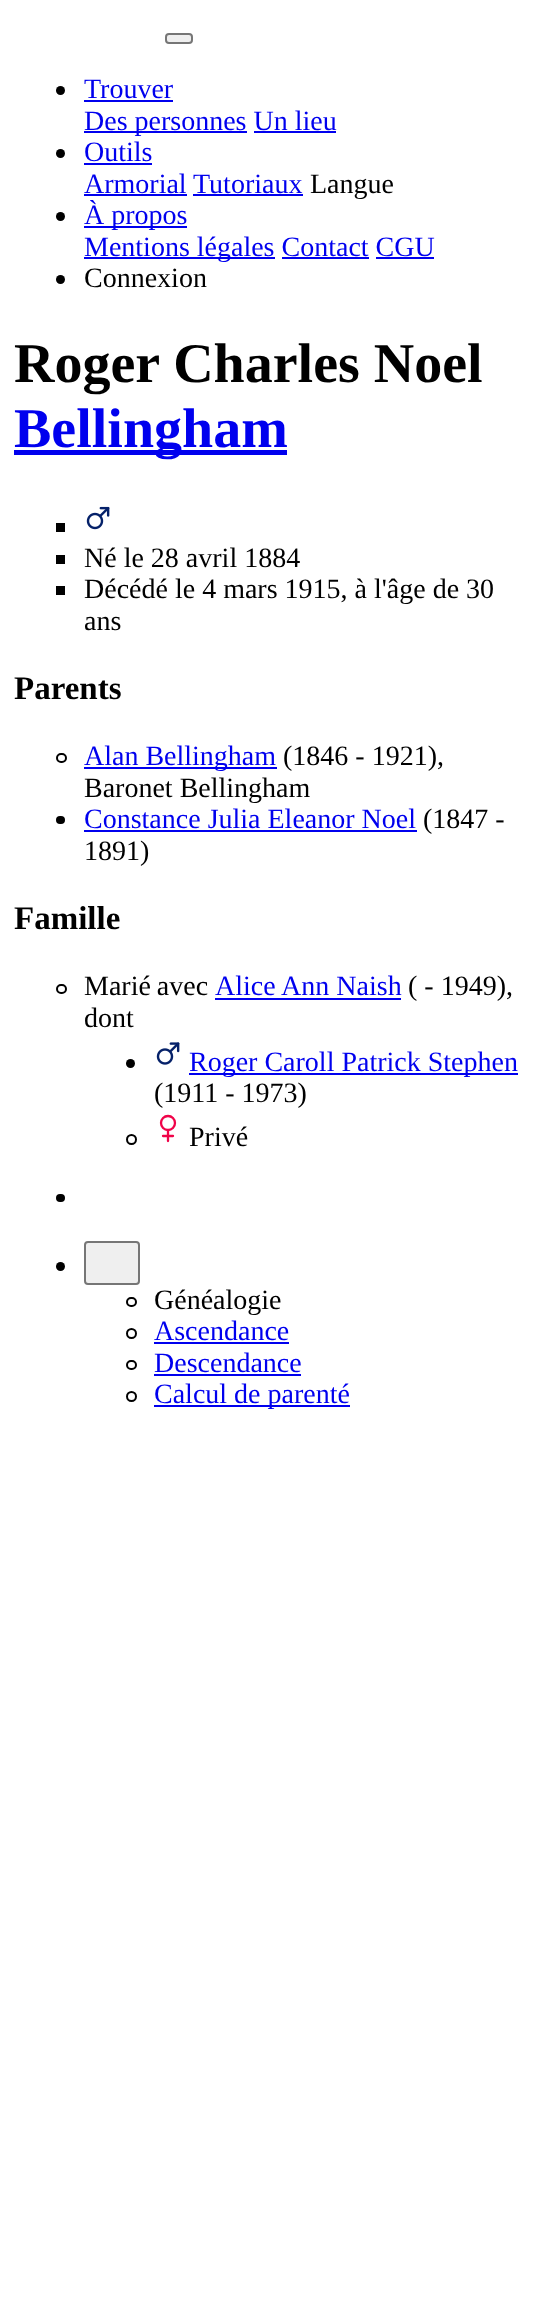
<svg xmlns="http://www.w3.org/2000/svg" width="543" height="2305" viewBox="0 0 543 2305">
  <rect width="100%" height="100%" fill="#ffffff"/>
  <rect x="166" y="34" width="26" height="9" rx="3" fill="#efefef" stroke="#767676" stroke-width="2"/>
  <circle cx="60.5" cy="90.5" r="4.5" fill="#000000"/>
  <text x="84" y="98" font-family="Liberation Serif" font-size="28" fill="#0000ee">Trouver</text>
  <rect x="84" y="100" width="89" height="2" fill="#0000ee"/>
  <rect x="84" y="131" width="163" height="2" fill="#0000ee"/>
  <text x="84" y="130" font-family="Liberation Serif" font-size="28" fill="#0000ee">Des personnes Un lieu</text>
  <rect x="254" y="131" width="82" height="2" fill="#0000ee"/>
  <circle cx="60.5" cy="153.5" r="4.5" fill="#000000"/>
  <text x="84" y="161" font-family="Liberation Serif" font-size="28" fill="#0000ee">Outils</text>
  <rect x="84" y="163" width="68" height="2" fill="#0000ee"/>
  <text x="84" y="193" font-family="Liberation Serif" font-size="28" fill="#0000ee">Armorial</text>
  <rect x="84" y="194" width="103" height="2" fill="#0000ee"/>
  <text x="193" y="193" font-family="Liberation Serif" font-size="28" fill="#0000ee">Tutoriaux</text>
  <rect x="193" y="194" width="110" height="2" fill="#0000ee"/>
  <text x="310" y="193" font-family="Liberation Serif" font-size="28" fill="#000000">Langue</text>
  <circle cx="60.5" cy="216.5" r="4.5" fill="#000000"/>
  <rect x="84" y="226" width="103" height="2" fill="#0000ee"/>
  <text x="84" y="224" font-family="Liberation Serif" font-size="28" fill="#0000ee">À propos</text>
  <rect x="84" y="257" width="191" height="2" fill="#0000ee"/>
  <text x="84" y="256" font-family="Liberation Serif" font-size="28" fill="#0000ee">Mentions légales Contact CGU</text>
  <rect x="282" y="257" width="87" height="2" fill="#0000ee"/>
  <rect x="376" y="257" width="58" height="2" fill="#0000ee"/>
  <circle cx="60.5" cy="279.5" r="4.5" fill="#000000"/>
  <text x="84" y="287" font-family="Liberation Serif" font-size="28" fill="#000000">Connexion</text>
  <text x="14" y="382" font-family="Liberation Serif" font-size="56" font-weight="bold" fill="#000000">Roger Charles Noel</text>
  <rect x="14" y="450" width="273" height="5" fill="#0000ee"/>
  <text x="14" y="447" font-family="Liberation Serif" font-size="56" font-weight="bold" fill="#0000ee">Bellingham</text>
  <rect x="56" y="523" width="9" height="9" fill="#000000"/>
  <image x="86" y="506" width="24" height="24" href="img1.png"/>
  <rect x="56" y="555" width="9" height="9" fill="#000000"/>
  <text x="84" y="567" font-family="Liberation Serif" font-size="28" fill="#000000">Né le 28 avril 1884</text>
  <rect x="56" y="586" width="9" height="9" fill="#000000"/>
  <text x="84" y="598" font-family="Liberation Serif" font-size="28" fill="#000000">Décédé le 4 mars 1915, à l'âge de 30</text>
  <text x="84" y="630" font-family="Liberation Serif" font-size="28" fill="#000000">ans</text>
  <text x="14" y="699" font-family="Liberation Serif" font-size="33" font-weight="bold" fill="#000000">Parents</text>
  <rect x="57" y="754" width="9" height="8" rx="4" fill="none" stroke="#000000" stroke-width="2"/>
  <rect x="84" y="767" width="193" height="2" fill="#0000ee"/>
  <text x="84" y="765" font-family="Liberation Serif" font-size="28" fill="#0000ee">Alan Bellingham</text>
  <text x="283" y="765" font-family="Liberation Serif" font-size="28" fill="#000000">(1846 - 1921),</text>
  <text x="84" y="797" font-family="Liberation Serif" font-size="28" fill="#000000">Baronet Bellingham</text>
  <rect x="56" y="816" width="9" height="8" rx="4" fill="#000000"/>
  <text x="84" y="828" font-family="Liberation Serif" font-size="28" fill="#0000ee">Constance Julia Eleanor Noel</text>
  <rect x="84" y="830" width="333" height="2" fill="#0000ee"/>
  <text x="423" y="828" font-family="Liberation Serif" font-size="28" fill="#000000">(1847 -</text>
  <text x="84" y="860" font-family="Liberation Serif" font-size="28" fill="#000000">1891)</text>
  <text x="14" y="929" font-family="Liberation Serif" font-size="33" font-weight="bold" fill="#000000">Famille</text>
  <rect x="57" y="985" width="9" height="8" rx="4" fill="none" stroke="#000000" stroke-width="2"/>
  <text x="84" y="995" word-spacing="-1" font-family="Liberation Serif" font-size="28" fill="#000000">Marié avec</text>
  <text x="215" y="995" font-family="Liberation Serif" font-size="28" fill="#0000ee">Alice Ann Naish</text>
  <rect x="215" y="998" width="186" height="2" fill="#0000ee"/>
  <text x="408" y="995" font-family="Liberation Serif" font-size="28" fill="#000000">( - 1949),</text>
  <text x="84" y="1027" font-family="Liberation Serif" font-size="28" fill="#000000">dont</text>
  <circle cx="130.5" cy="1063.5" r="4.5" fill="#000000"/>
  <image x="156" y="1042" width="24" height="23" href="img2.png"/>
  <rect x="189" y="1073" width="329" height="2" fill="#0000ee"/>
  <text x="189" y="1071" font-family="Liberation Serif" font-size="28" fill="#0000ee">Roger Caroll Patrick Stephen</text>
  <text x="154" y="1102" font-family="Liberation Serif" font-size="28" fill="#000000">(1911 - 1973)</text>
  <circle cx="168" cy="1123" r="7" fill="none" stroke="#f00349" stroke-width="2.3"/>
  <circle cx="131.5" cy="1139.5" r="4.5" fill="none" stroke="#000000" stroke-width="2"/>
  <path d="M168 1130.5V1141M163 1136H173" fill="none" stroke="#f00349" stroke-width="2.3" stroke-linecap="round" stroke-linejoin="round"/>
  <text x="189" y="1146" font-family="Liberation Serif" font-size="28" fill="#000000">Privé</text>
  <rect x="56" y="1194" width="9" height="8" rx="4" fill="#000000"/>
  <circle cx="60.5" cy="1266.5" r="4.5" fill="#000000"/>
  <rect x="85" y="1242" width="54" height="42" rx="3" fill="#efefef" stroke="#767676" stroke-width="2"/>
  <rect x="127" y="1298" width="9" height="8" rx="4" fill="none" stroke="#000000" stroke-width="2"/>
  <text x="154" y="1309" font-family="Liberation Serif" font-size="28" fill="#000000">Généalogie</text>
  <circle cx="131.5" cy="1333.5" r="4.5" fill="none" stroke="#000000" stroke-width="2"/>
  <text x="154" y="1340" font-family="Liberation Serif" font-size="28" fill="#0000ee">Ascendance</text>
  <rect x="154" y="1342" width="135" height="2" fill="#0000ee"/>
  <rect x="127" y="1361" width="9" height="8" rx="4" fill="none" stroke="#000000" stroke-width="2"/>
  <text x="154" y="1372" font-family="Liberation Serif" font-size="28" fill="#0000ee">Descendance</text>
  <rect x="154" y="1374" width="147" height="2" fill="#0000ee"/>
  <circle cx="131.5" cy="1396.5" r="4.5" fill="none" stroke="#000000" stroke-width="2"/>
  <rect x="154" y="1405" width="196" height="2" fill="#0000ee"/>
  <text x="154" y="1403" font-family="Liberation Serif" font-size="28" fill="#0000ee">Calcul de parenté</text>
</svg>
